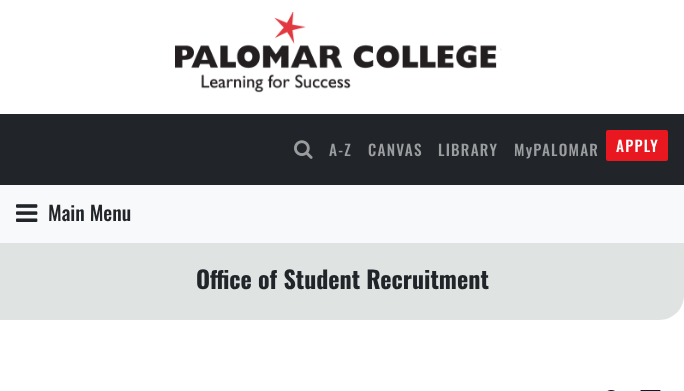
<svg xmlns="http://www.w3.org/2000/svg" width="684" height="391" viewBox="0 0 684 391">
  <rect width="100%" height="100%" fill="#ffffff"/>
  <image x="175" y="12" width="327" height="81" href="img1.png"/>
  <rect x="0" y="114" width="684" height="71" fill="#212529"/>
  <image x="294" y="140" width="19" height="19" href="img2.png"/>
  <text x="329" y="156" font-family="Oswald" font-size="15.25" font-weight="500" letter-spacing="1.25" fill="#9b9d9f">A-Z</text>
  <text x="368" y="156" font-family="Oswald" font-size="15.25" font-weight="500" letter-spacing="1.25" fill="#9b9d9f">CANVAS</text>
  <text x="438" y="156" font-family="Oswald" font-size="15.25" font-weight="500" letter-spacing="1.25" fill="#9b9d9f">LIBRARY</text>
  <text x="514" y="156" font-family="Oswald" font-size="15.25" font-weight="500" letter-spacing="1.25" fill="#9b9d9f">MyPALOMAR</text>
  <rect x="606" y="130" width="62" height="31" rx="2" fill="#e9171f"/>
  <text x="616" y="152" font-family="Oswald" font-size="15.25" font-weight="500" letter-spacing="1.25" fill="#ffffff">APPLY</text>
  <rect x="0" y="185" width="684" height="58" fill="#f8f9fa"/>
  <rect x="0" y="243" width="684" height="1" fill="#dee2e6"/>
  <image x="16" y="204" width="22" height="18" href="img3.png"/>
  <text x="48" y="221" font-family="Oswald" font-size="20" font-weight="500" fill="#212529">Main Menu</text>
  <path d="M0 244H684V295C684 309 673 320 659 320H0Z" fill="#dfe3e2"/>
  <text x="196" y="289" font-family="Oswald" font-size="24" font-weight="bold" fill="#212529">Office of Student Recruitment</text>
  <image x="607" y="390" width="8" height="1" href="img4.png"/>
  <image x="640" y="390" width="21" height="1" href="img5.png"/>
</svg>
